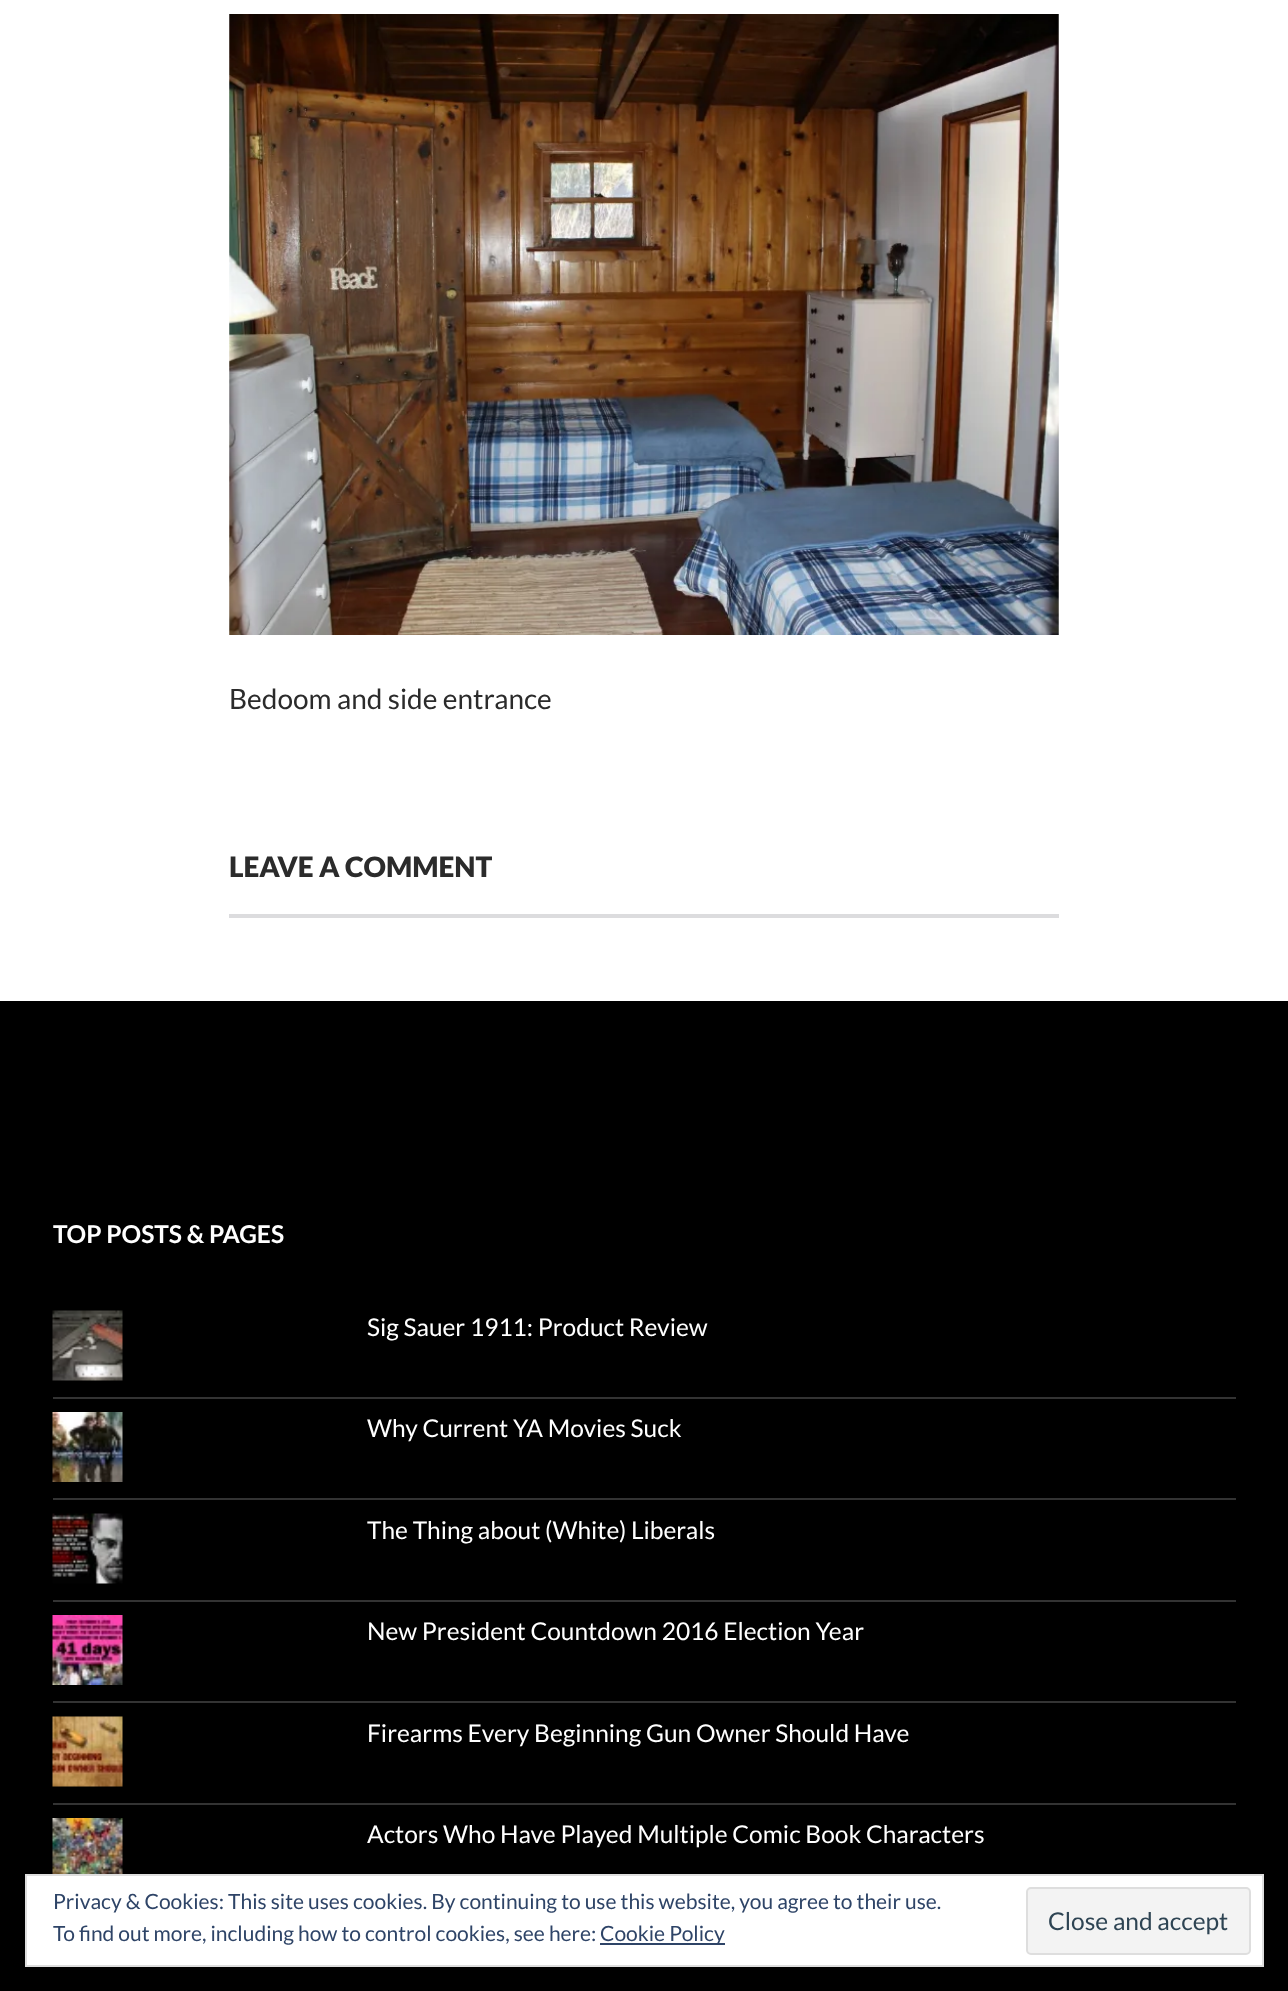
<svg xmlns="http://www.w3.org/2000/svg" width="1288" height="1991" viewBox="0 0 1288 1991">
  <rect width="100%" height="100%" fill="#ffffff"/>
  <image x="229" y="14" width="830" height="621" href="img1.png"/>
  <text x="229" y="709" font-family="Lato" font-size="28" fill="#2b2b2b">Bedoom and side entrance</text>
  <text x="229" y="877" font-family="Lato" font-size="28" font-weight="900" fill="#2b2b2b">LEAVE A COMMENT</text>
  <rect x="229" y="914" width="830" height="4" fill="#dcdcde"/>
  <rect x="0" y="1001" width="1288" height="990" fill="#000000"/>
  <text x="53" y="1243" font-family="Lato" font-size="24.5" font-weight="bold" fill="#ffffff">TOP POSTS &amp; PAGES</text>
  <image x="52" y="1310" width="71" height="71" href="img2.png"/>
  <text x="367" y="1336" font-family="Lato" font-size="24.5" fill="#ffffff">Sig Sauer 1911: Product Review</text>
  <rect x="53" y="1397" width="1183" height="2" fill="#333333"/>
  <image x="52" y="1412" width="71" height="70" href="img3.png"/>
  <text x="367" y="1437" font-family="Lato" font-size="24.5" fill="#ffffff">Why Current YA Movies Suck</text>
  <rect x="53" y="1498" width="1183" height="2" fill="#333333"/>
  <image x="52" y="1513" width="71" height="71" href="img4.png"/>
  <text x="367" y="1539" font-family="Lato" font-size="24.5" fill="#ffffff">The Thing about (White) Liberals</text>
  <rect x="53" y="1600" width="1183" height="2" fill="#333333"/>
  <image x="52" y="1615" width="71" height="70" href="img5.png"/>
  <text x="367" y="1640" font-family="Lato" font-size="24.5" fill="#ffffff">New President Countdown 2016 Election Year</text>
  <rect x="53" y="1701" width="1183" height="2" fill="#333333"/>
  <image x="52" y="1716" width="71" height="71" href="img6.png"/>
  <text x="367" y="1742" font-family="Lato" font-size="24.5" fill="#ffffff">Firearms Every Beginning Gun Owner Should Have</text>
  <rect x="53" y="1803" width="1183" height="2" fill="#333333"/>
  <image x="52" y="1818" width="71" height="56" href="img7.png"/>
  <text x="367" y="1843" font-family="Lato" font-size="24.5" fill="#ffffff">Actors Who Have Played Multiple Comic Book Characters</text>
  <rect x="26" y="1875" width="1237" height="91" fill="#ffffff" stroke="#dedede" stroke-width="2"/>
  <text x="53" y="1909" font-family="Lato" font-size="21" fill="#2e4467">Privacy &amp; Cookies: This site uses cookies. By continuing to use this website, you agree to their use.</text>
  <text x="53" y="1941" font-family="Lato" font-size="21" fill="#2e4467">To find out more, including how to control cookies, see here:</text>
  <rect x="600" y="1943" width="125" height="2" fill="#2e4467"/>
  <text x="600" y="1941" font-family="Lato" font-size="21" fill="#2e4467">Cookie Policy</text>
  <rect x="1027" y="1888" width="223" height="66" rx="4" fill="#f3f3f3" stroke="#dedede" stroke-width="2"/>
  <text x="1048" y="1930" font-family="Lato" font-size="24.5" fill="#2e4453">Close and accept</text>
</svg>
